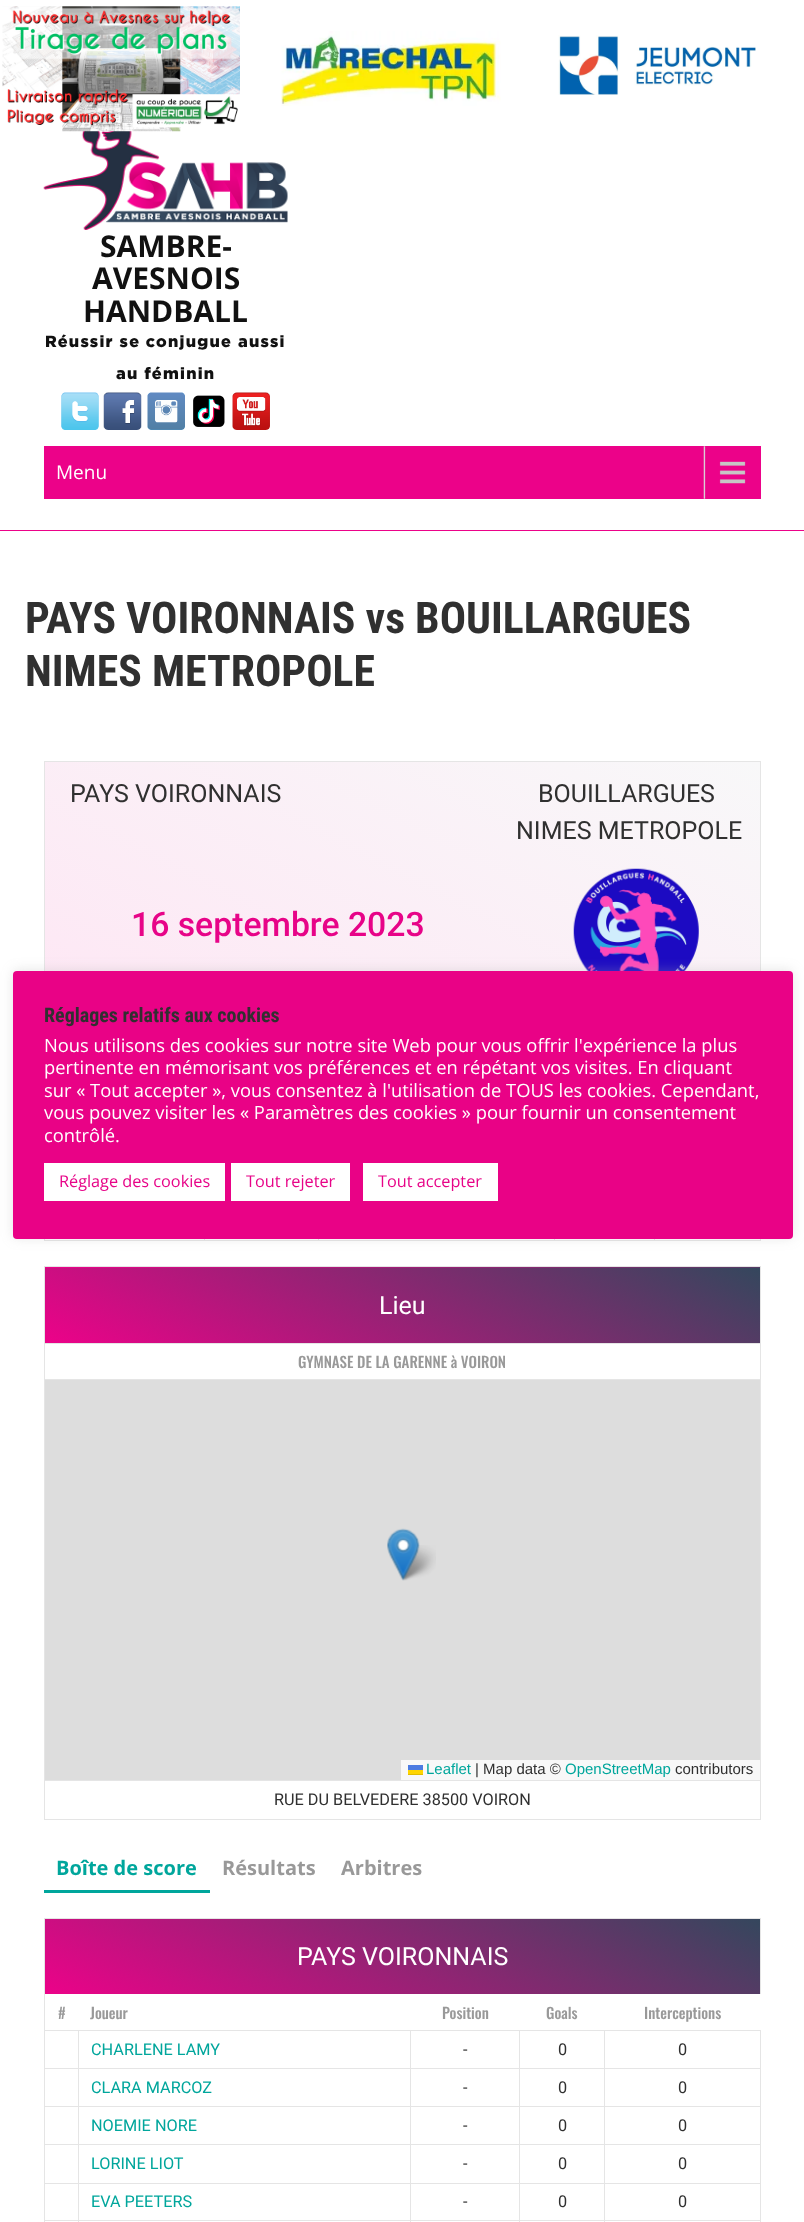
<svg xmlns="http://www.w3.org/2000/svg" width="804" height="2222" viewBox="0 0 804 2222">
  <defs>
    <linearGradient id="g1" gradientUnits="userSpaceOnUse" x1="273" y1="1156" x2="533" y2="645"><stop offset="0" stop-color="#fee6f4"/><stop offset="1" stop-color="#f8f8f9"/></linearGradient>
    <linearGradient id="g2" gradientUnits="userSpaceOnUse" x1="314" y1="1404" x2="491" y2="1056"><stop offset="0" stop-color="#ec0289"/><stop offset="1" stop-color="#34475d"/></linearGradient>
    <linearGradient id="g3" gradientUnits="userSpaceOnUse" x1="314" y1="1479" x2="491" y2="1131"><stop offset="0" stop-color="#ec0289"/><stop offset="1" stop-color="#34475d"/></linearGradient>
    <linearGradient id="g4" gradientUnits="userSpaceOnUse" x1="314" y1="2131" x2="491" y2="1782"><stop offset="0" stop-color="#ec0289"/><stop offset="1" stop-color="#34475d"/></linearGradient>
    <filter id="blur1" x="-50%" y="-200%" width="200%" height="500%"><feGaussianBlur stdDeviation="6"/></filter>
  </defs>
  <rect width="100%" height="100%" fill="#ffffff"/>
  <image x="43" y="131" width="245" height="99" href="img4.png"/>
  <image x="2" y="6" width="238" height="126" href="img1.png"/>
  <image x="281" y="31" width="220" height="75" href="img2.png"/>
  <image x="558" y="35" width="198" height="60" href="img3.png"/>
  <rect x="0" y="530" width="804" height="1" fill="#ec0289"/>
  <text x="100" y="257" font-family="Open Sans" font-size="30" font-weight="bold" fill="#111111">SAMBRE-</text>
  <text x="92" y="289" font-family="Open Sans" font-size="30" font-weight="bold" fill="#111111">AVESNOIS</text>
  <text x="83" y="322" font-family="Open Sans" font-size="30" font-weight="bold" fill="#111111">HANDBALL</text>
  <text x="45" y="347" font-family="Gotham" font-size="16.25" font-weight="900" letter-spacing="1.25" fill="#111111">Réussir se conjugue aussi</text>
  <text x="116" y="379" font-family="Gotham" font-size="16.25" font-weight="900" letter-spacing="1.25" fill="#111111">au féminin</text>
  <image x="61" y="392" width="38" height="38" href="img5.png"/>
  <image x="103" y="392" width="39" height="38" href="img6.png"/>
  <image x="147" y="392" width="38" height="38" href="img7.png"/>
  <image x="193" y="395" width="32" height="32" href="img8.png"/>
  <image x="232" y="392" width="38" height="38" href="img9.png"/>
  <rect x="44" y="446" width="717" height="53" fill="#ec0289"/>
  <image x="703" y="446" width="43" height="53" href="img10.png"/>
  <text x="56" y="479" font-family="Open Sans" font-size="19" fill="#ffffff">Menu</text>
  <text x="25" y="633" font-family="Roboto Condensed" font-size="43.75" font-weight="bold" fill="#303030">PAYS VOIRONNAIS vs BOUILLARGUES</text>
  <text x="25" y="686" font-family="Roboto Condensed" font-size="43.75" font-weight="bold" fill="#303030">NIMES METROPOLE</text>
  <rect x="44" y="761" width="717" height="1" fill="#e5e5e5"/>
  <rect x="760" y="761" width="1" height="210" fill="#e5e5e5"/>
  <rect x="44" y="761" width="1" height="210" fill="#e5e5e5"/>
  <rect x="45" y="762" width="715" height="209" fill="url(#g1)"/>
  <text x="70" y="802" font-family="Roboto" font-size="25" fill="#303030">PAYS VOIRONNAIS</text>
  <text x="538" y="802" font-family="Roboto" font-size="25" fill="#303030">BOUILLARGUES</text>
  <text x="516" y="839" font-family="Roboto" font-size="25" fill="#303030">NIMES METROPOLE</text>
  <image x="573" y="868" width="126" height="103" href="img11.png"/>
  <text x="131" y="936" font-family="Roboto" font-size="33.75" font-weight="500" fill="#e70488">16 septembre 2023</text>
  <rect x="760" y="1239" width="1" height="2" fill="#e5e5e5"/>
  <rect x="44" y="1240" width="717" height="1" fill="#e5e5e5"/>
  <rect x="44" y="1239" width="1" height="2" fill="#e5e5e5"/>
  <rect x="204" y="1239" width="1" height="2" fill="#e5e5e5"/>
  <rect x="318" y="1239" width="1" height="2" fill="#e5e5e5"/>
  <rect x="554" y="1239" width="1" height="2" fill="#e5e5e5"/>
  <rect x="654" y="1239" width="1" height="2" fill="#e5e5e5"/>
  <rect x="45" y="1267" width="715" height="1" fill="url(#g2)"/>
  <rect x="45" y="1268" width="715" height="75" fill="url(#g3)"/>
  <rect x="44" y="1266" width="717" height="1" fill="#e5e5e5"/>
  <rect x="760" y="1266" width="1" height="77" fill="#e5e5e5"/>
  <rect x="44" y="1266" width="1" height="77" fill="#e5e5e5"/>
  <text x="379" y="1314" font-family="Roboto" font-size="25" fill="#ffffff">Lieu</text>
  <rect x="44" y="1343" width="717" height="1" fill="#e5e5e5"/>
  <rect x="760" y="1343" width="1" height="477" fill="#e5e5e5"/>
  <rect x="44" y="1819" width="717" height="1" fill="#e5e5e5"/>
  <rect x="44" y="1343" width="1" height="477" fill="#e5e5e5"/>
  <text x="298" y="1368" font-family="Oswald" font-size="15" font-weight="500" fill="#999999">GYMNASE DE LA GARENNE à VOIRON</text>
  <rect x="44" y="1379" width="717" height="1" fill="#e5e5e5"/>
  <rect x="45" y="1380" width="715" height="400" fill="#dddddd"/>
  <image x="398" y="1545" width="38" height="36" href="img13.png"/>
  <image x="387" y="1528" width="33" height="53" href="img12.png"/>
  <rect x="401" y="1760" width="359" height="20" fill="#f8f8f8"/>
  <text x="426" y="1774" font-family="Liberation Sans" font-size="15" fill="#00a69c">Leaflet</text>
  <rect x="408" y="1765" width="15" height="5" fill="#4c7be1"/>
  <rect x="408" y="1770" width="15" height="4" fill="#ffd500"/>
  <rect x="408" y="1774" width="15" height="1" fill="#e0bc00"/>
  <text x="475" y="1774" font-family="Liberation Sans" font-size="15" fill="#303030">| Map data ©</text>
  <text x="565" y="1774" font-family="Liberation Sans" font-size="15" fill="#00a69c">OpenStreetMap</text>
  <text x="675" y="1774" font-family="Liberation Sans" font-size="15" fill="#303030">contributors</text>
  <rect x="44" y="1780" width="717" height="1" fill="#e5e5e5"/>
  <text x="274" y="1805" font-family="Roboto" font-size="16.25" fill="#303030">RUE DU BELVEDERE 38500 VOIRON</text>
  <rect x="44" y="1890" width="166" height="3" fill="#00a69c"/>
  <text x="56" y="1875" font-family="Open Sans" font-size="20" font-weight="bold" fill="#00a69c">Boîte de score</text>
  <text x="222" y="1875" font-family="Open Sans" font-size="20" font-weight="bold" fill="#999999">Résultats</text>
  <text x="341" y="1875" font-family="Open Sans" font-size="20" font-weight="bold" fill="#999999">Arbitres</text>
  <rect x="45" y="1919" width="715" height="75" fill="url(#g4)"/>
  <rect x="44" y="1918" width="717" height="1" fill="#e5e5e5"/>
  <rect x="760" y="1918" width="1" height="76" fill="#e5e5e5"/>
  <rect x="44" y="1918" width="1" height="304" fill="#e5e5e5"/>
  <text x="297" y="1965" font-family="Roboto" font-size="25" fill="#ffffff">PAYS VOIRONNAIS</text>
  <rect x="760" y="2031" width="1" height="191" fill="#e5e5e5"/>
  <text x="58" y="2019" font-family="Oswald" font-size="15" font-weight="500" fill="#999999">#</text>
  <text x="90" y="2019" font-family="Oswald" font-size="15" font-weight="500" fill="#999999">Joueur</text>
  <text x="442" y="2019" font-family="Oswald" font-size="15" font-weight="500" fill="#999999">Position</text>
  <text x="546" y="2019" font-family="Oswald" font-size="15" font-weight="500" fill="#999999">Goals</text>
  <text x="644" y="2019" font-family="Oswald" font-size="15" font-weight="500" fill="#999999">Interceptions</text>
  <rect x="604" y="2030" width="157" height="1" fill="#e5e5e5"/>
  <rect x="604" y="2068" width="157" height="1" fill="#e5e5e5"/>
  <rect x="604" y="2106" width="157" height="1" fill="#e5e5e5"/>
  <rect x="604" y="2144" width="157" height="1" fill="#e5e5e5"/>
  <rect x="604" y="2183" width="157" height="1" fill="#e5e5e5"/>
  <rect x="604" y="2220" width="157" height="1" fill="#e5e5e5"/>
  <rect x="604" y="2220" width="1" height="2" fill="#e5e5e5"/>
  <rect x="519" y="2220" width="86" height="1" fill="#e5e5e5"/>
  <rect x="604" y="2183" width="1" height="38" fill="#e5e5e5"/>
  <rect x="519" y="2183" width="86" height="1" fill="#e5e5e5"/>
  <rect x="604" y="2144" width="1" height="40" fill="#e5e5e5"/>
  <rect x="519" y="2144" width="86" height="1" fill="#e5e5e5"/>
  <rect x="604" y="2106" width="1" height="39" fill="#e5e5e5"/>
  <rect x="519" y="2106" width="86" height="1" fill="#e5e5e5"/>
  <rect x="604" y="2068" width="1" height="40" fill="#e5e5e5"/>
  <rect x="519" y="2068" width="86" height="1" fill="#e5e5e5"/>
  <rect x="604" y="2030" width="1" height="39" fill="#e5e5e5"/>
  <rect x="519" y="2030" width="86" height="1" fill="#e5e5e5"/>
  <rect x="519" y="2220" width="1" height="2" fill="#e5e5e5"/>
  <rect x="410" y="2220" width="110" height="1" fill="#e5e5e5"/>
  <rect x="519" y="2183" width="1" height="38" fill="#e5e5e5"/>
  <rect x="410" y="2183" width="110" height="1" fill="#e5e5e5"/>
  <rect x="519" y="2144" width="1" height="40" fill="#e5e5e5"/>
  <rect x="410" y="2144" width="110" height="1" fill="#e5e5e5"/>
  <rect x="519" y="2106" width="1" height="39" fill="#e5e5e5"/>
  <rect x="410" y="2106" width="110" height="1" fill="#e5e5e5"/>
  <rect x="519" y="2068" width="1" height="40" fill="#e5e5e5"/>
  <rect x="410" y="2068" width="110" height="1" fill="#e5e5e5"/>
  <rect x="519" y="2030" width="1" height="39" fill="#e5e5e5"/>
  <rect x="410" y="2030" width="110" height="1" fill="#e5e5e5"/>
  <rect x="410" y="2220" width="1" height="2" fill="#e5e5e5"/>
  <rect x="78" y="2220" width="333" height="1" fill="#e5e5e5"/>
  <rect x="410" y="2183" width="1" height="38" fill="#e5e5e5"/>
  <rect x="78" y="2183" width="333" height="1" fill="#e5e5e5"/>
  <rect x="410" y="2144" width="1" height="40" fill="#e5e5e5"/>
  <rect x="78" y="2144" width="333" height="1" fill="#e5e5e5"/>
  <rect x="410" y="2106" width="1" height="39" fill="#e5e5e5"/>
  <rect x="78" y="2106" width="333" height="1" fill="#e5e5e5"/>
  <rect x="410" y="2068" width="1" height="40" fill="#e5e5e5"/>
  <rect x="78" y="2068" width="333" height="1" fill="#e5e5e5"/>
  <rect x="410" y="2030" width="1" height="39" fill="#e5e5e5"/>
  <rect x="78" y="2030" width="333" height="1" fill="#e5e5e5"/>
  <rect x="78" y="2220" width="1" height="2" fill="#e5e5e5"/>
  <rect x="44" y="2220" width="35" height="1" fill="#e5e5e5"/>
  <rect x="78" y="2183" width="1" height="38" fill="#e5e5e5"/>
  <rect x="44" y="2183" width="35" height="1" fill="#e5e5e5"/>
  <rect x="78" y="2144" width="1" height="40" fill="#e5e5e5"/>
  <rect x="44" y="2144" width="35" height="1" fill="#e5e5e5"/>
  <rect x="78" y="2106" width="1" height="39" fill="#e5e5e5"/>
  <rect x="44" y="2106" width="35" height="1" fill="#e5e5e5"/>
  <rect x="78" y="2068" width="1" height="40" fill="#e5e5e5"/>
  <rect x="44" y="2068" width="35" height="1" fill="#e5e5e5"/>
  <rect x="78" y="2030" width="1" height="39" fill="#e5e5e5"/>
  <rect x="44" y="2030" width="35" height="1" fill="#e5e5e5"/>
  <text x="91" y="2055" font-family="Roboto" font-size="16.25" fill="#00a69c">CHARLENE LAMY</text>
  <text x="463" y="2055" font-family="Roboto" font-size="16.25" fill="#303030">-</text>
  <text x="558" y="2055" font-family="Roboto" font-size="16.25" fill="#303030">0</text>
  <text x="678" y="2055" font-family="Roboto" font-size="16.25" fill="#303030">0</text>
  <text x="91" y="2093" font-family="Roboto" font-size="16.25" fill="#00a69c">CLARA MARCOZ</text>
  <text x="463" y="2093" font-family="Roboto" font-size="16.25" fill="#303030">-</text>
  <text x="558" y="2093" font-family="Roboto" font-size="16.25" fill="#303030">0</text>
  <text x="678" y="2093" font-family="Roboto" font-size="16.25" fill="#303030">0</text>
  <text x="91" y="2131" font-family="Roboto" font-size="16.25" fill="#00a69c">NOEMIE NORE</text>
  <text x="463" y="2131" font-family="Roboto" font-size="16.25" fill="#303030">-</text>
  <text x="558" y="2131" font-family="Roboto" font-size="16.25" fill="#303030">0</text>
  <text x="678" y="2131" font-family="Roboto" font-size="16.25" fill="#303030">0</text>
  <text x="91" y="2169" font-family="Roboto" font-size="16.25" fill="#00a69c">LORINE LIOT</text>
  <text x="463" y="2169" font-family="Roboto" font-size="16.25" fill="#303030">-</text>
  <text x="558" y="2169" font-family="Roboto" font-size="16.25" fill="#303030">0</text>
  <text x="678" y="2169" font-family="Roboto" font-size="16.25" fill="#303030">0</text>
  <text x="91" y="2207" font-family="Roboto" font-size="16.25" fill="#00a69c">EVA PEETERS</text>
  <text x="463" y="2207" font-family="Roboto" font-size="16.25" fill="#303030">-</text>
  <text x="558" y="2207" font-family="Roboto" font-size="16.25" fill="#303030">0</text>
  <text x="678" y="2207" font-family="Roboto" font-size="16.25" fill="#303030">0</text>
  <rect x="13" y="970" width="780" height="268" rx="4" fill="#acabab" fill-opacity="0.3" filter="url(#blur1)"/>
  <rect x="13" y="971" width="780" height="268" rx="4" fill="#e90286"/>
  <text x="44" y="1022" font-family="Roboto Condensed" font-size="20" font-weight="bold" fill="#303030">Réglages relatifs aux cookies</text>
  <text x="44" y="1052" font-family="Open Sans" font-size="18.35" fill="#ffffff">Nous utilisons des cookies sur notre site Web pour vous offrir l'expérience la plus</text>
  <text x="44" y="1074" font-family="Open Sans" font-size="18.35" fill="#ffffff">pertinente en mémorisant vos préférences et en répétant vos visites. En cliquant</text>
  <text x="44" y="1097" font-family="Open Sans" font-size="18.35" fill="#ffffff">sur « Tout accepter », vous consentez à l'utilisation de TOUS les cookies. Cependant,</text>
  <text x="44" y="1119" font-family="Open Sans" font-size="18.35" fill="#ffffff">vous pouvez visiter les « Paramètres des cookies » pour fournir un consentement</text>
  <text x="44" y="1142" font-family="Open Sans" font-size="18.35" fill="#ffffff">contrôlé.</text>
  <rect x="44" y="1163" width="181" height="38" fill="#ffffff"/>
  <text x="59" y="1187" font-family="Open Sans" font-size="16.25" fill="#e70488">Réglage des cookies</text>
  <rect x="231" y="1163" width="119" height="38" fill="#ffffff"/>
  <text x="246" y="1187" font-family="Open Sans" font-size="16.25" fill="#e70488">Tout rejeter</text>
  <rect x="363" y="1163" width="135" height="38" fill="#ffffff"/>
  <text x="378" y="1187" font-family="Open Sans" font-size="16.25" fill="#e70488">Tout accepter</text>
</svg>
